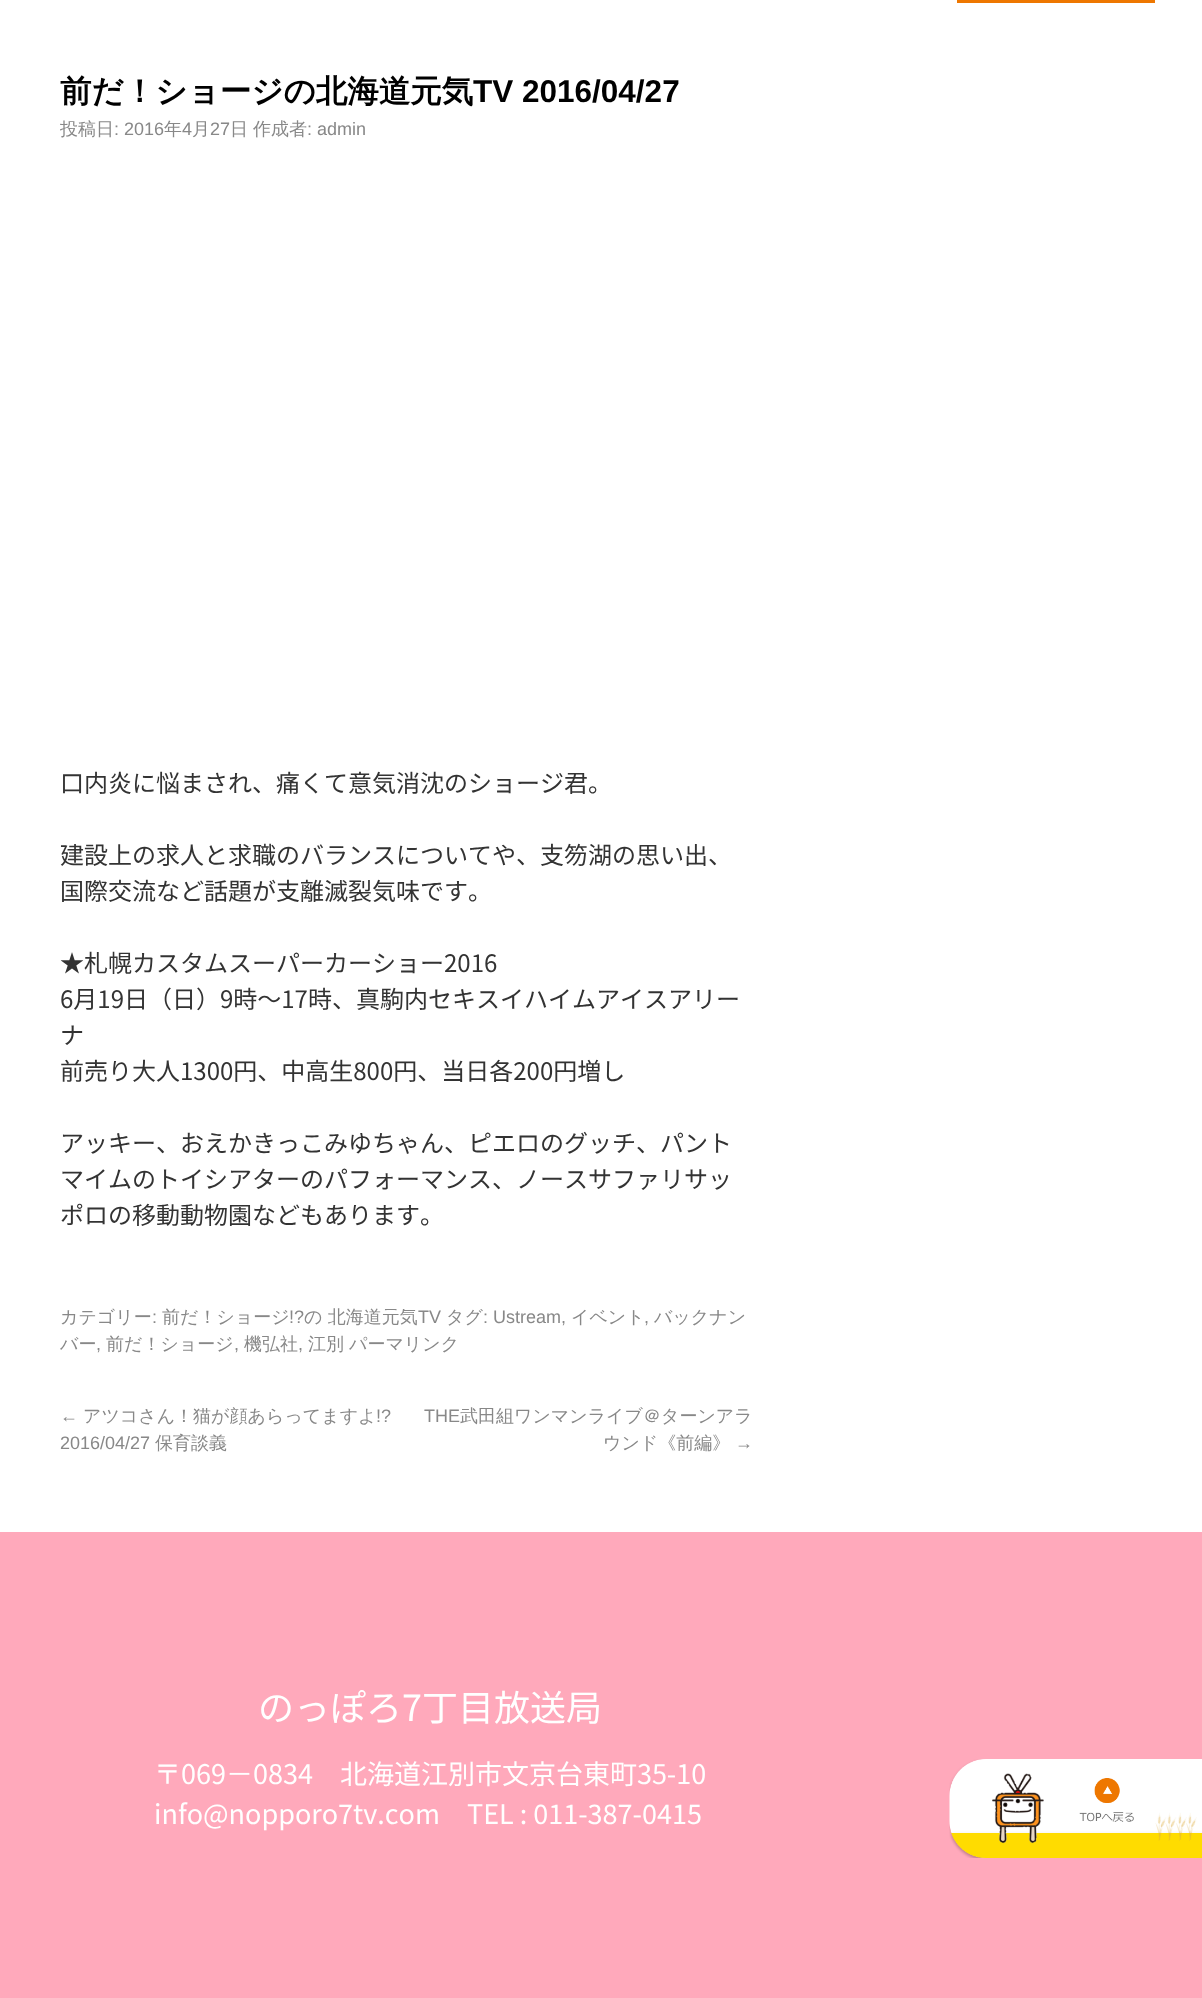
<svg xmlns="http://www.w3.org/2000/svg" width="1202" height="1998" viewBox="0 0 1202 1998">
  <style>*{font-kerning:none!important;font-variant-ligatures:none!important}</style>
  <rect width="100%" height="100%" fill="#ffa9bb"/>
  <rect x="0" y="0" width="1202" height="1532" fill="#ffffff"/>
  <rect x="957" y="0" width="198" height="3" fill="#ee7700"/>
  <text x="60" y="102" font-family="WenQuanYi Zen Hei" font-size="31.5" font-weight="bold" fill="#000000">前だ！ショージの北海道元気</text>
  <text x="473" y="102" font-family="Liberation Sans" font-size="31.5" font-weight="bold" fill="#000000">TV 2016/04/27</text>
  <text x="60" y="135" font-family="WenQuanYi Zen Hei" font-size="18" font-weight="500" fill="#888888">投稿日</text>
  <text x="114" y="135" font-family="Liberation Sans" font-size="18" fill="#888888">: 2016</text>
  <text x="164" y="135" font-family="WenQuanYi Zen Hei" font-size="18" font-weight="500" fill="#888888">年</text>
  <text x="182" y="135" font-family="Liberation Sans" font-size="18" fill="#888888">4</text>
  <text x="192" y="135" font-family="WenQuanYi Zen Hei" font-size="18" font-weight="500" fill="#888888">月</text>
  <text x="210" y="135" font-family="Liberation Sans" font-size="18" fill="#888888">27</text>
  <text x="230" y="135" font-family="WenQuanYi Zen Hei" font-size="18" font-weight="500" fill="#888888">日</text>
  <text x="253" y="135" font-family="WenQuanYi Zen Hei" font-size="18" font-weight="500" fill="#888888">作成者</text>
  <text x="307" y="135" font-family="Liberation Sans" font-size="18" fill="#888888">: admin</text>
  <text x="60" y="792" font-family="Noto Sans JP" font-size="24" fill="#333333">口内炎に悩まされ、痛くて意気消沈のショージ君。</text>
  <text x="60" y="864" font-family="Noto Sans JP" font-size="24" fill="#333333">建設上の求人と求職のバランスについてや、支笏湖の思い出、</text>
  <text x="60" y="900" font-family="Noto Sans JP" font-size="24" fill="#333333">国際交流など話題が支離滅裂気味です。</text>
  <text x="60" y="972" font-family="Noto Sans JP" font-size="24" fill="#333333">★札幌カスタムスーパーカーショー2016</text>
  <text x="60" y="1008" font-family="Noto Sans JP" font-size="24" fill="#333333">6月19日（日）9時～17時、真駒内セキスイハイムアイスアリー</text>
  <text x="60" y="1044" font-family="Noto Sans JP" font-size="24" fill="#333333">ナ</text>
  <text x="60" y="1080" font-family="Noto Sans JP" font-size="24" fill="#333333">前売り大人1300円、中高生800円、当日各200円増し</text>
  <text x="60" y="1152" font-family="Noto Sans JP" font-size="24" fill="#333333">アッキー、おえかきっこみゆちゃん、ピエロのグッチ、パント</text>
  <text x="60" y="1188" font-family="Noto Sans JP" font-size="24" fill="#333333">マイムのトイシアターのパフォーマンス、ノースサファリサッ</text>
  <text x="60" y="1224" font-family="Noto Sans JP" font-size="24" fill="#333333">ポロの移動動物園などもあります。</text>
  <text x="60" y="1323" font-family="WenQuanYi Zen Hei" font-size="18" font-weight="500" fill="#888888">カテゴリー</text>
  <text x="152" y="1323" font-family="Liberation Sans" font-size="18" fill="#888888">:</text>
  <text x="162" y="1323" font-family="WenQuanYi Zen Hei" font-size="18" font-weight="500" fill="#888888">前だ！ショージ</text>
  <text x="289" y="1323" font-family="Liberation Sans" font-size="18" fill="#888888">!?</text>
  <text x="304" y="1323" font-family="WenQuanYi Zen Hei" font-size="18" font-weight="500" fill="#888888">の 北海道元気</text>
  <text x="418" y="1323" font-family="Liberation Sans" font-size="18" fill="#888888">TV</text>
  <text x="446" y="1323" font-family="WenQuanYi Zen Hei" font-size="18" font-weight="500" fill="#888888">タグ</text>
  <text x="483" y="1323" font-family="Liberation Sans" font-size="18" fill="#888888">: Ustream,</text>
  <text x="571" y="1323" font-family="WenQuanYi Zen Hei" font-size="18" font-weight="500" fill="#888888">イベント</text>
  <text x="654" y="1323" font-family="WenQuanYi Zen Hei" font-size="18" font-weight="500" fill="#888888">バックナン</text>
  <text x="644" y="1323" font-family="Liberation Sans" font-size="18" fill="#888888">,</text>
  <text x="60" y="1350" font-family="WenQuanYi Zen Hei" font-size="18" font-weight="500" fill="#888888">バー</text>
  <text x="106" y="1350" font-family="WenQuanYi Zen Hei" font-size="18" font-weight="500" fill="#888888">前だ！ショージ</text>
  <text x="244" y="1350" font-family="WenQuanYi Zen Hei" font-size="18" font-weight="500" fill="#888888">機弘社</text>
  <text x="308" y="1350" font-family="WenQuanYi Zen Hei" font-size="18" font-weight="500" fill="#888888">江別</text>
  <text x="349" y="1350" font-family="WenQuanYi Zen Hei" font-size="18" font-weight="500" fill="#888888">パーマリンク</text>
  <text x="96" y="1350" font-family="Liberation Sans" font-size="18" fill="#888888">,</text>
  <text x="234" y="1350" font-family="Liberation Sans" font-size="18" fill="#888888">,</text>
  <text x="298" y="1350" font-family="Liberation Sans" font-size="18" fill="#888888">,</text>
  <text x="60" y="1422" font-family="Liberation Sans" font-size="18" fill="#888888">←</text>
  <text x="83" y="1422" font-family="WenQuanYi Zen Hei" font-size="18" font-weight="500" fill="#888888">アツコさん！猫が顔あらってますよ</text>
  <text x="376" y="1422" font-family="Liberation Sans" font-size="18" fill="#888888">!?</text>
  <text x="60" y="1449" font-family="Liberation Sans" font-size="18" fill="#888888">2016/04/27</text>
  <text x="155" y="1449" font-family="WenQuanYi Zen Hei" font-size="18" font-weight="500" fill="#888888">保育談義</text>
  <text x="424" y="1422" font-family="Liberation Sans" font-size="18" fill="#888888">THE</text>
  <text x="460" y="1422" font-family="WenQuanYi Zen Hei" font-size="18" font-weight="500" fill="#888888">武田組ワンマンライブ＠ターンアラ</text>
  <text x="603" y="1449" font-family="WenQuanYi Zen Hei" font-size="18" font-weight="500" fill="#888888">ウンド《前編》</text>
  <text x="735" y="1449" font-family="Liberation Sans" font-size="18" fill="#888888">→</text>
  <text x="258" y="1721" font-family="Noto Sans JP" font-size="36" fill="#ffffff">のっぽろ7丁目放送局</text>
  <text x="154" y="1784" font-family="Noto Sans JP" font-size="27" fill="#ffffff">〒069－0834　北海道江別市文京台東町35-10</text>
  <text x="154" y="1824" font-family="Noto Sans JP" font-size="27" fill="#ffffff">info@nopporo7tv.com　TEL : 011-387-0415</text>
  <image x="949" y="1759" width="253" height="99" href="img1.png"/>
</svg>
